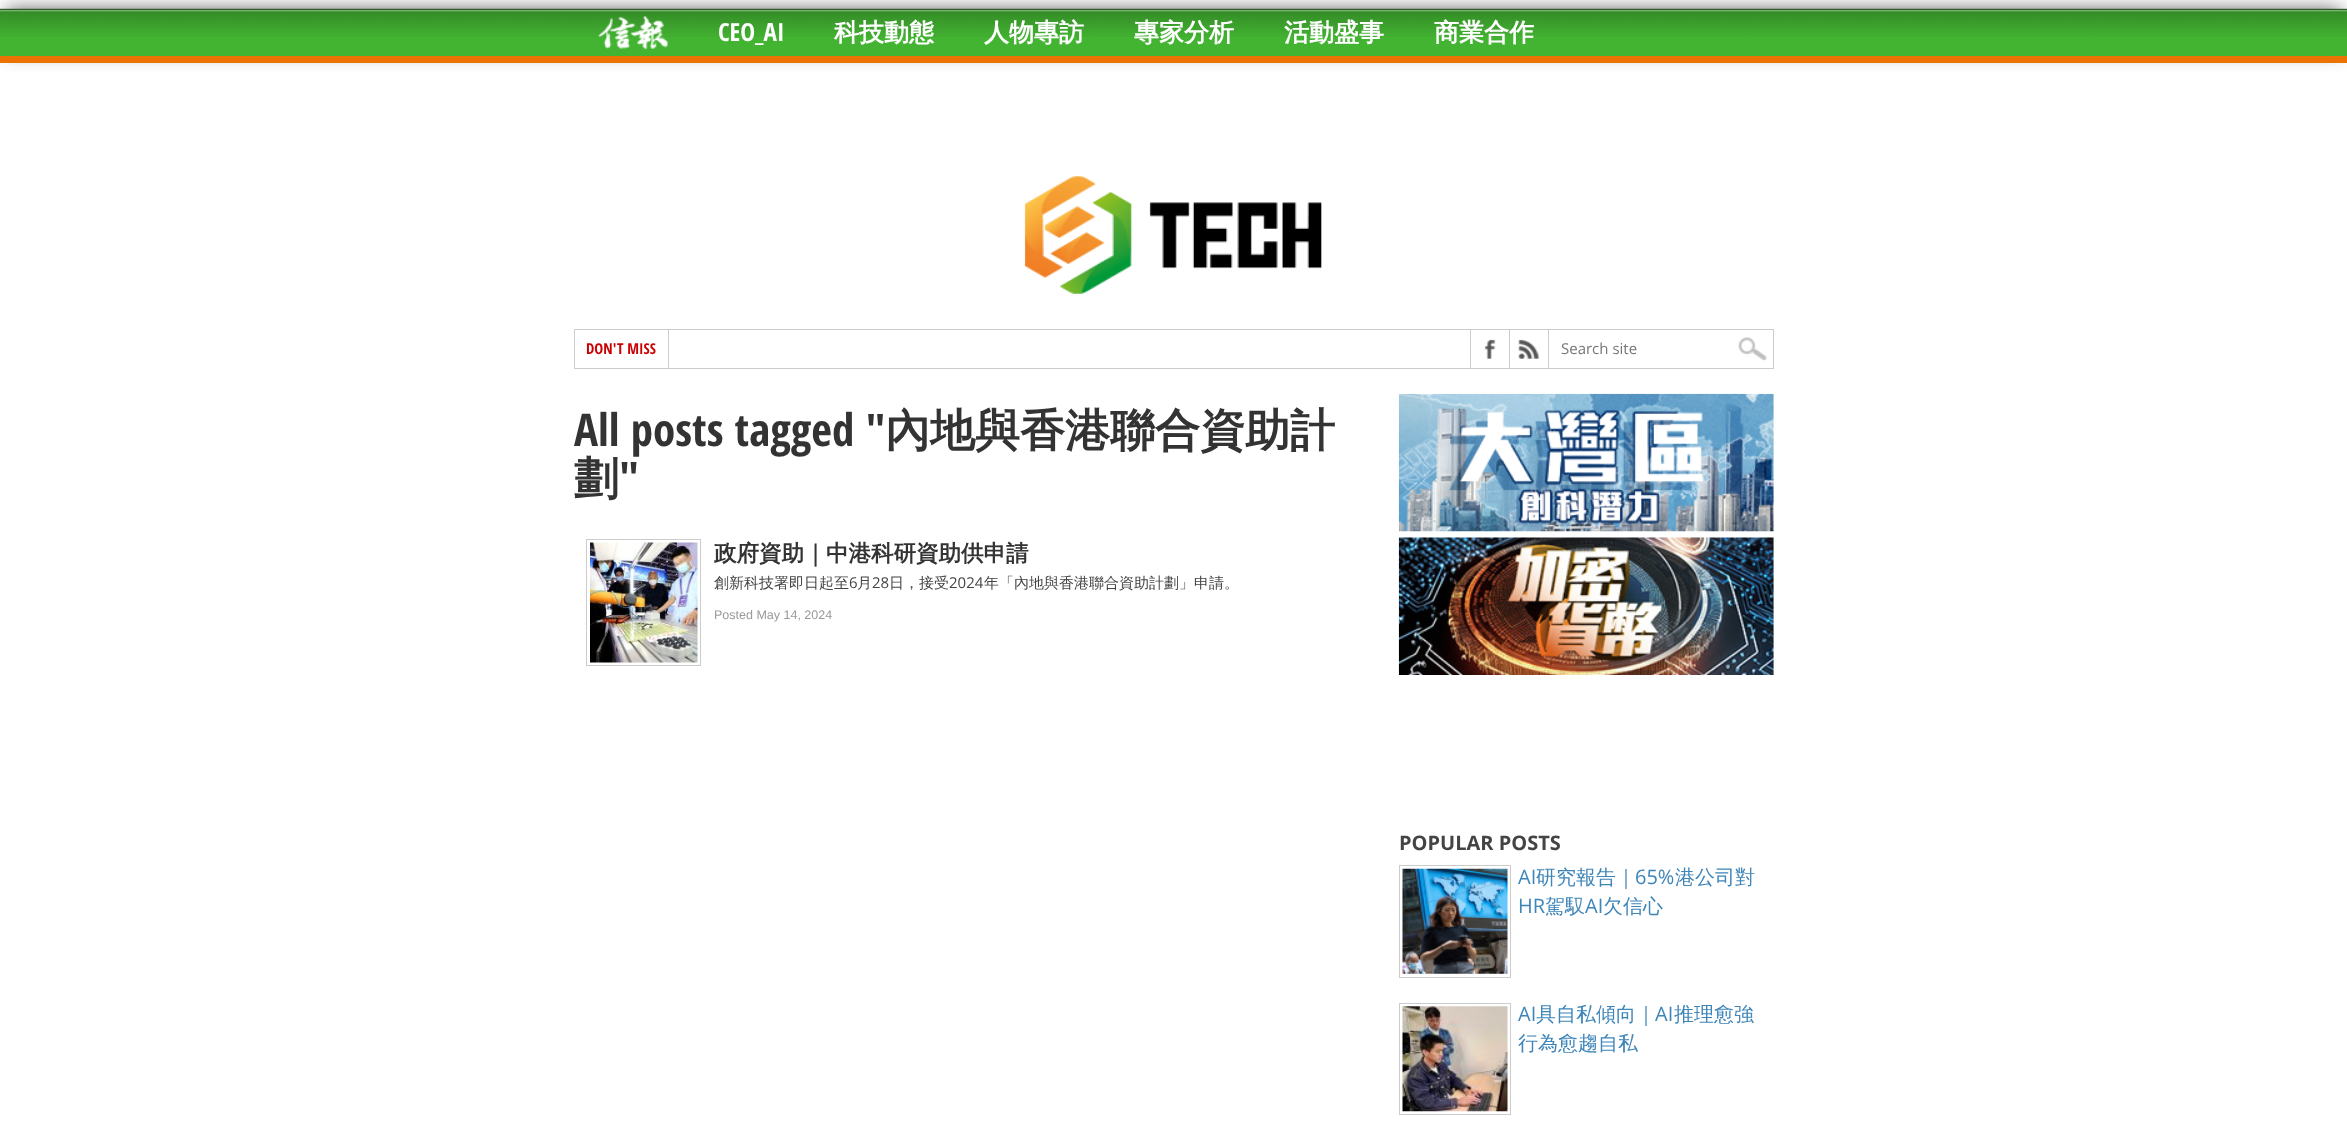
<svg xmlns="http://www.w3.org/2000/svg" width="2347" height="1124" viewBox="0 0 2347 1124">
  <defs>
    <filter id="blur1" x="-50%" y="-200%" width="200%" height="500%"><feGaussianBlur stdDeviation="9.5"/></filter>
  </defs>
  <rect width="100%" height="100%" fill="#ffffff"/>
  <rect x="6" y="10" width="2335" height="41" fill="#555555" filter="url(#blur1)"/>
  <rect x="0" y="9" width="2347" height="47" fill="#43b332"/>
  <image x="0" y="8" width="2347" height="29" href="img1.png"/>
  <rect x="0" y="56" width="2347" height="7" fill="#ed7300"/>
  <image x="598" y="16" width="70" height="33" href="img2.png"/>
  <text x="718" y="41" font-family="Open Sans Condensed" font-size="25" font-weight="bold" fill="#ffffff">CEO_AI</text>
  <text x="834" y="41" font-family="WenQuanYi Zen Hei" font-size="25" font-weight="bold" fill="#ffffff">科技動態</text>
  <text x="984" y="41" font-family="WenQuanYi Zen Hei" font-size="25" font-weight="bold" fill="#ffffff">人物專訪</text>
  <text x="1134" y="41" font-family="WenQuanYi Zen Hei" font-size="25" font-weight="bold" fill="#ffffff">專家分析</text>
  <text x="1284" y="41" font-family="WenQuanYi Zen Hei" font-size="25" font-weight="bold" fill="#ffffff">活動盛事</text>
  <text x="1434" y="41" font-family="WenQuanYi Zen Hei" font-size="25" font-weight="bold" fill="#ffffff">商業合作</text>
  <image x="1024" y="176" width="298" height="118" href="img3.png"/>
  <rect x="574.5" y="329.5" width="1199" height="39" fill="none" stroke="#cccccc"/>
  <rect x="668" y="330" width="1" height="38" fill="#cccccc"/>
  <text x="586" y="354" font-family="Open Sans Condensed" font-size="15" font-weight="bold" fill="#ca0002">DON'T MISS</text>
  <rect x="1470" y="330" width="1" height="38" fill="#cccccc"/>
  <image x="1484" y="339" width="12" height="20" href="img4.png"/>
  <rect x="1509" y="330" width="1" height="38" fill="#cccccc"/>
  <image x="1518" y="339" width="21" height="20" href="img5.png"/>
  <rect x="1548" y="330" width="1" height="38" fill="#cccccc"/>
  <image x="1738" y="337" width="29" height="24" href="img6.png"/>
  <text x="1561" y="354" font-family="Open Sans" font-size="15" fill="#777777">Search site</text>
  <text x="574" y="446" font-family="Open Sans Condensed" font-size="45" font-weight="bold" fill="#333333">All posts tagged "</text>
  <text x="885" y="446" font-family="WenQuanYi Zen Hei" font-size="45" font-weight="bold" fill="#333333">內地與香港聯合資助計</text>
  <text x="574" y="494" font-family="WenQuanYi Zen Hei" font-size="45" font-weight="bold" fill="#333333">劃</text>
  <text x="619" y="494" font-family="Open Sans Condensed" font-size="45" font-weight="bold" fill="#333333">"</text>
  <rect x="586.5" y="539.5" width="114" height="126" fill="none" stroke="#cccccc"/>
  <image x="590" y="542" width="108" height="121" href="img7.png"/>
  <text x="714" y="561" font-family="WenQuanYi Zen Hei" font-size="22.5" font-weight="bold" fill="#333333">政府資助｜中港科研資助供申請</text>
  <text x="714" y="588" font-family="WenQuanYi Zen Hei" font-size="15" font-weight="500" fill="#444444">創新科技署即日起至</text>
  <text x="849" y="588" font-family="Open Sans" font-size="15" fill="#444444">6</text>
  <text x="857" y="588" font-family="WenQuanYi Zen Hei" font-size="15" font-weight="500" fill="#444444">月</text>
  <text x="872" y="588" font-family="Open Sans" font-size="15" fill="#444444">28</text>
  <text x="889" y="588" font-family="WenQuanYi Zen Hei" font-size="15" font-weight="500" fill="#444444">日，接受</text>
  <text x="949" y="588" font-family="Open Sans" font-size="15" fill="#444444">2024</text>
  <text x="984" y="588" font-family="WenQuanYi Zen Hei" font-size="15" font-weight="500" fill="#444444">年「內地與香港聯合資助計劃」申請。</text>
  <text x="714" y="619" font-family="Liberation Sans" font-size="12.5" fill="#999999">Posted May 14, 2024</text>
  <image x="1398" y="393" width="376" height="139" href="img8.png"/>
  <image x="1398" y="537" width="376" height="138" href="img9.png"/>
  <text x="1399" y="850" font-family="Open Sans" font-size="20" font-weight="bold" fill="#444444">POPULAR POSTS</text>
  <rect x="1399.5" y="865.5" width="111" height="112" fill="none" stroke="#cccccc"/>
  <image x="1402" y="868" width="106" height="106" href="img10.png"/>
  <text x="1518" y="884" font-family="Open Sans" font-size="20" fill="#3e85b8">AI</text>
  <text x="1536" y="884" font-family="WenQuanYi Zen Hei" font-size="20" font-weight="500" fill="#3e85b8">研究報告｜</text>
  <text x="1635" y="884" font-family="Open Sans" font-size="20" fill="#3e85b8">65%</text>
  <text x="1675" y="884" font-family="WenQuanYi Zen Hei" font-size="20" font-weight="500" fill="#3e85b8">港公司對</text>
  <text x="1518" y="913" font-family="Open Sans" font-size="20" fill="#3e85b8">HR</text>
  <text x="1545" y="913" font-family="WenQuanYi Zen Hei" font-size="20" font-weight="500" fill="#3e85b8">駕馭</text>
  <text x="1585" y="913" font-family="Open Sans" font-size="20" fill="#3e85b8">AI</text>
  <text x="1603" y="913" font-family="WenQuanYi Zen Hei" font-size="20" font-weight="500" fill="#3e85b8">欠信心</text>
  <rect x="1399.5" y="1003.5" width="111" height="111" fill="none" stroke="#cccccc"/>
  <image x="1402" y="1006" width="106" height="106" href="img11.png"/>
  <text x="1518" y="1021" font-family="Open Sans" font-size="20" fill="#3e85b8">AI</text>
  <text x="1536" y="1021" font-family="WenQuanYi Zen Hei" font-size="20" font-weight="500" fill="#3e85b8">具自私傾向｜</text>
  <text x="1655" y="1021" font-family="Open Sans" font-size="20" fill="#3e85b8">AI</text>
  <text x="1674" y="1021" font-family="WenQuanYi Zen Hei" font-size="20" font-weight="500" fill="#3e85b8">推理愈強</text>
  <text x="1518" y="1050" font-family="WenQuanYi Zen Hei" font-size="20" font-weight="500" fill="#3e85b8">行為愈趨自私</text>
</svg>
